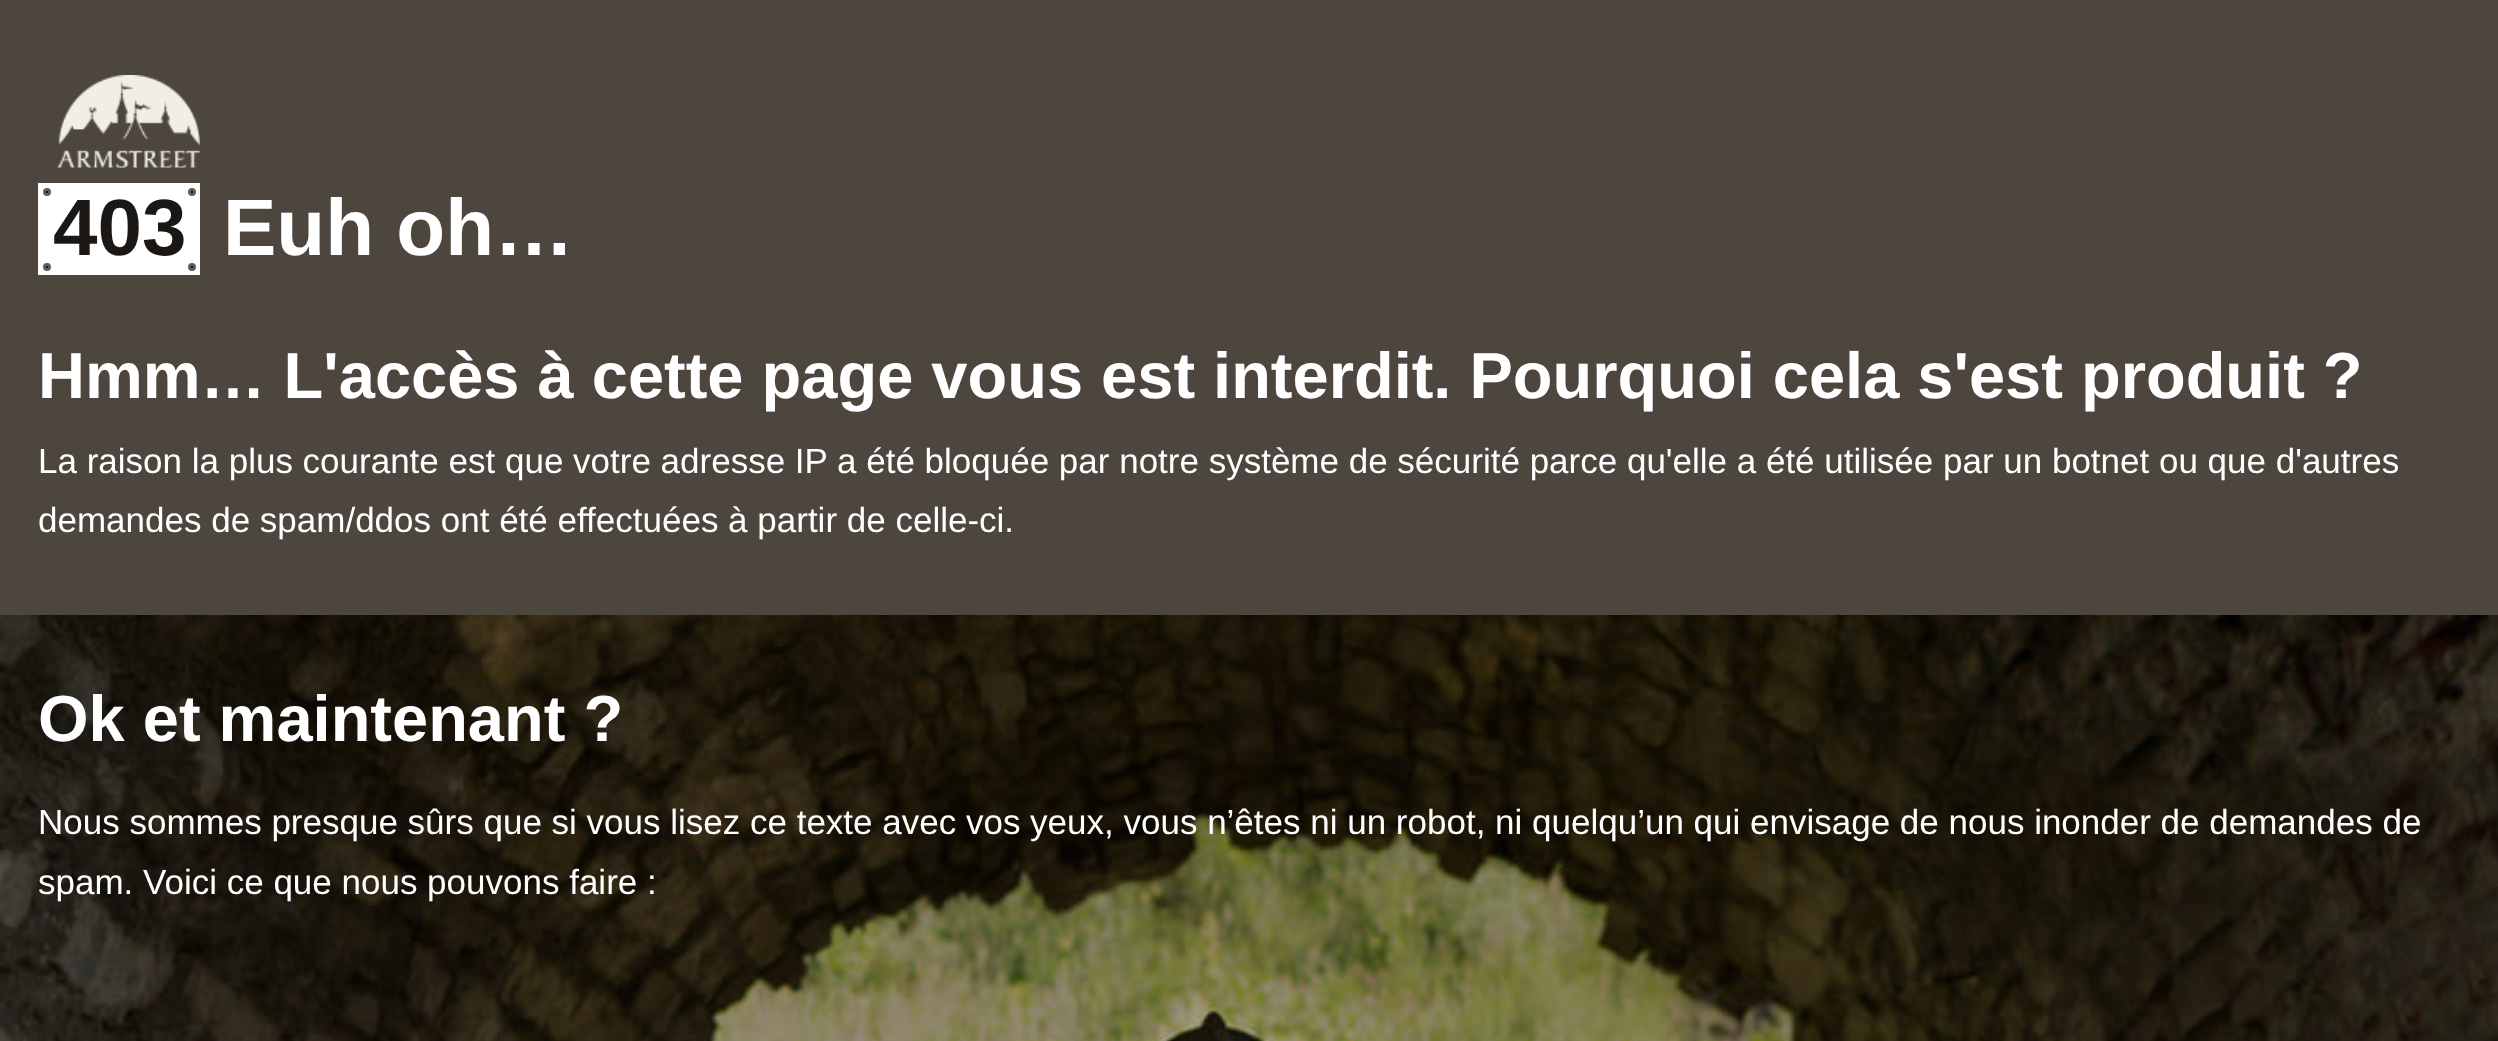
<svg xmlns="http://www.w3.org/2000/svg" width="2498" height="1041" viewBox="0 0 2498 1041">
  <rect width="100%" height="100%" fill="#4d463f"/>
  <image x="57" y="75" width="143" height="93" href="img1.png"/>
  <rect x="38" y="183" width="162" height="92" fill="#ffffff"/>
  <circle cx="47" cy="192" r="2.5" fill="#000000" stroke="#5f5c59" stroke-width="3"/>
  <circle cx="192" cy="192" r="2.5" fill="#000000" stroke="#5f5c59" stroke-width="3"/>
  <text x="53" y="255" font-family="Liberation Sans" font-size="80" font-weight="bold" fill="#1a1715">403</text>
  <circle cx="192" cy="267" r="2.5" fill="#000000" stroke="#5f5c59" stroke-width="3"/>
  <circle cx="47" cy="267" r="2.5" fill="#000000" stroke="#5f5c59" stroke-width="3"/>
  <text x="223" y="255" font-family="Liberation Sans" font-size="80" font-weight="bold" fill="#ffffff">Euh oh…</text>
  <text x="38" y="398" font-family="Liberation Sans" font-size="65" font-weight="bold" fill="#ffffff">Hmm… L'accès à cette page vous est interdit. Pourquoi cela s'est produit ?</text>
  <text x="38" y="473" font-family="Liberation Sans" font-size="35" fill="#ffffff">La raison la plus courante est que votre adresse IP a été bloquée par notre système de sécurité parce qu'elle a été utilisée par un botnet ou que d'autres</text>
  <text x="38" y="532" font-family="Liberation Sans" font-size="35" fill="#ffffff">demandes de spam/ddos ont été effectuées à partir de celle-ci.</text>
  <image x="0" y="615" width="2498" height="426" href="img2.png"/>
  <text x="38" y="741" font-family="Liberation Sans" font-size="65" font-weight="bold" fill="#ffffff">Ok et maintenant ?</text>
  <text x="38" y="834" font-family="Liberation Sans" font-size="35" fill="#ffffff">Nous sommes presque sûrs que si vous lisez ce texte avec vos yeux, vous n’êtes ni un robot, ni quelqu’un qui envisage de nous inonder de demandes de</text>
  <text x="38" y="894" font-family="Liberation Sans" font-size="35" fill="#ffffff">spam. Voici ce que nous pouvons faire :</text>
</svg>
